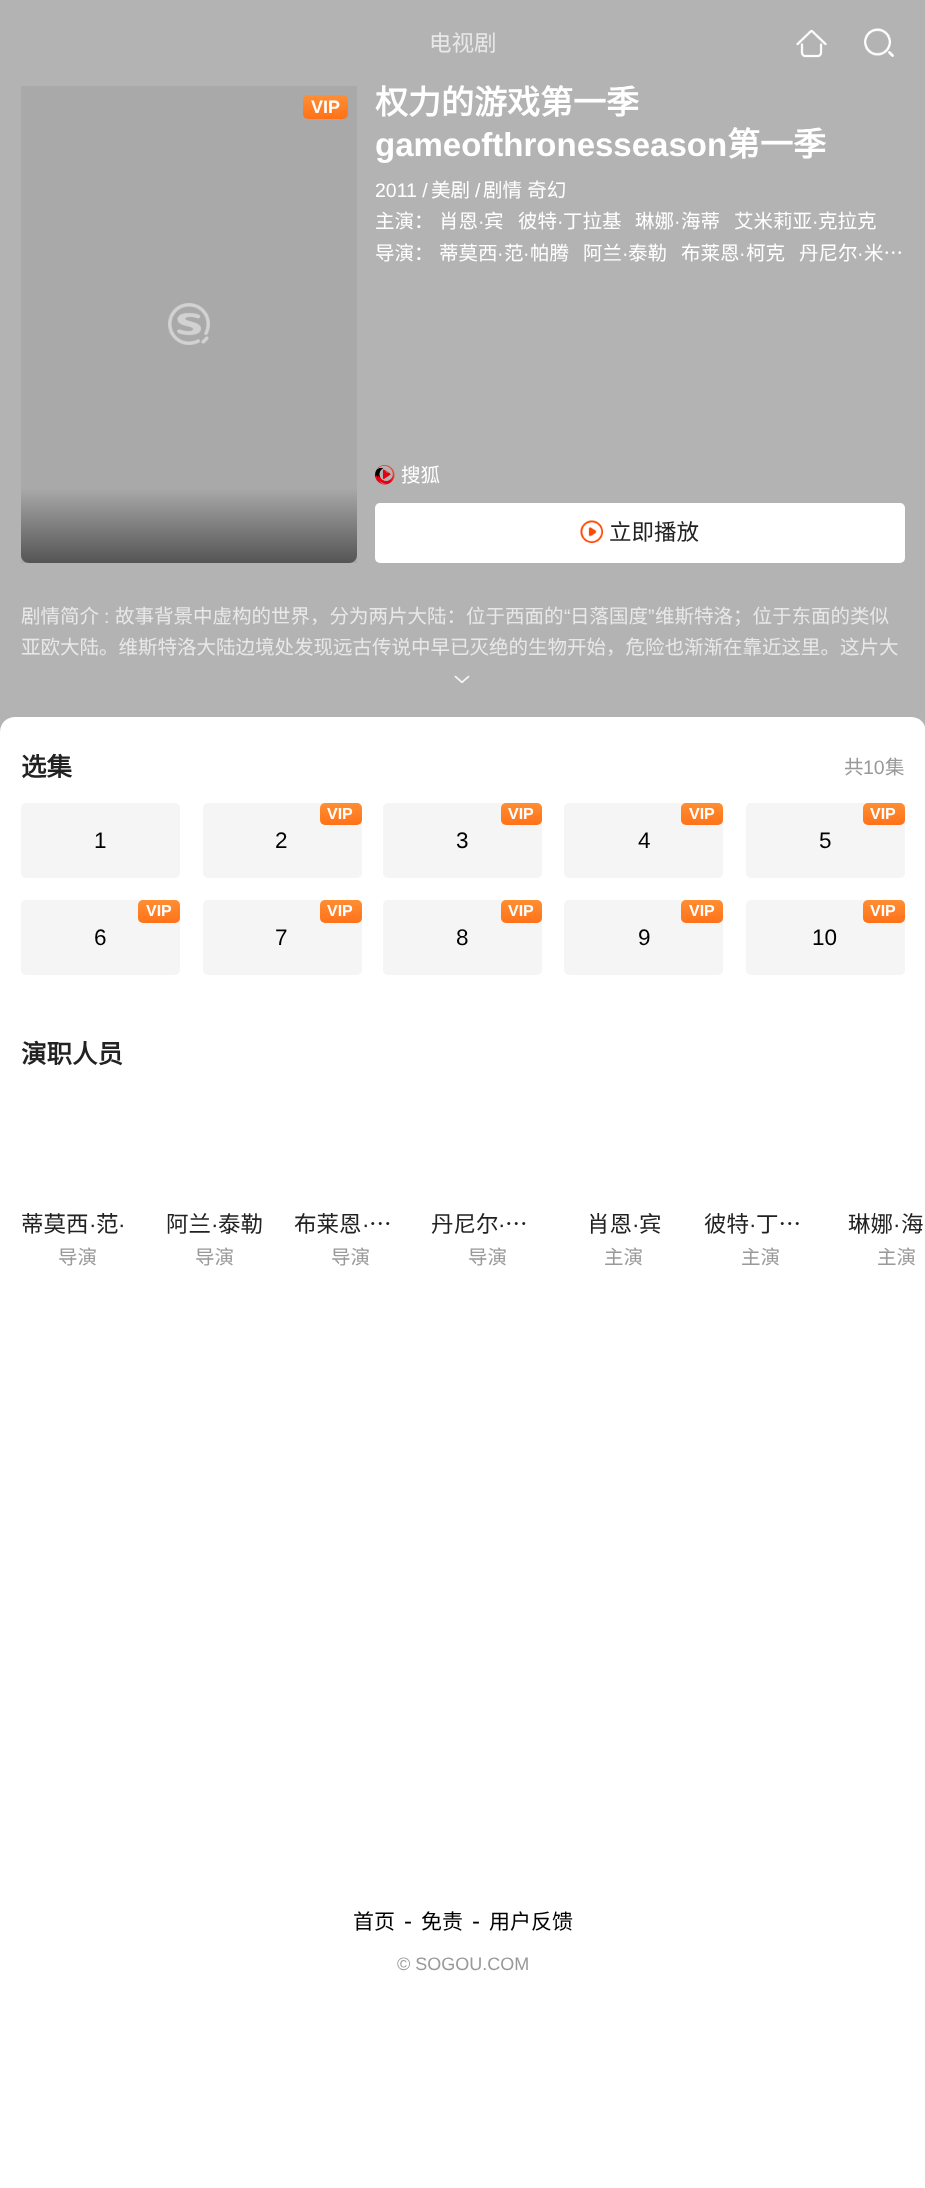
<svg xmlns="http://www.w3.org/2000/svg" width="925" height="2188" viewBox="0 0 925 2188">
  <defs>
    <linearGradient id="g1" gradientUnits="userSpaceOnUse" x1="326" y1="95" x2="326" y2="119"><stop offset="0" stop-color="#ff8e33"/><stop offset="1" stop-color="#ff7219"/></linearGradient>
    <linearGradient id="g2" gradientUnits="userSpaceOnUse" x1="189" y1="563" x2="189" y2="488"><stop offset="0" stop-color="#000000" stop-opacity="0.5"/><stop offset="1" stop-color="#000000" stop-opacity="0"/></linearGradient>
    <linearGradient id="g3" gradientUnits="userSpaceOnUse" x1="341" y1="803" x2="341" y2="825"><stop offset="0" stop-color="#ff8e33"/><stop offset="1" stop-color="#ff7219"/></linearGradient>
    <linearGradient id="g4" gradientUnits="userSpaceOnUse" x1="521" y1="803" x2="521" y2="825"><stop offset="0" stop-color="#ff8e33"/><stop offset="1" stop-color="#ff7219"/></linearGradient>
    <linearGradient id="g5" gradientUnits="userSpaceOnUse" x1="702" y1="803" x2="702" y2="825"><stop offset="0" stop-color="#ff8e33"/><stop offset="1" stop-color="#ff7219"/></linearGradient>
    <linearGradient id="g6" gradientUnits="userSpaceOnUse" x1="884" y1="803" x2="884" y2="825"><stop offset="0" stop-color="#ff8e33"/><stop offset="1" stop-color="#ff7219"/></linearGradient>
    <linearGradient id="g7" gradientUnits="userSpaceOnUse" x1="159" y1="900" x2="159" y2="923"><stop offset="0" stop-color="#ff8e33"/><stop offset="1" stop-color="#ff7219"/></linearGradient>
    <linearGradient id="g8" gradientUnits="userSpaceOnUse" x1="341" y1="900" x2="341" y2="923"><stop offset="0" stop-color="#ff8e33"/><stop offset="1" stop-color="#ff7219"/></linearGradient>
    <linearGradient id="g9" gradientUnits="userSpaceOnUse" x1="521" y1="900" x2="521" y2="923"><stop offset="0" stop-color="#ff8e33"/><stop offset="1" stop-color="#ff7219"/></linearGradient>
    <linearGradient id="g10" gradientUnits="userSpaceOnUse" x1="702" y1="900" x2="702" y2="923"><stop offset="0" stop-color="#ff8e33"/><stop offset="1" stop-color="#ff7219"/></linearGradient>
    <linearGradient id="g11" gradientUnits="userSpaceOnUse" x1="884" y1="900" x2="884" y2="923"><stop offset="0" stop-color="#ff8e33"/><stop offset="1" stop-color="#ff7219"/></linearGradient>
  </defs>
  <rect width="100%" height="100%" fill="#ffffff"/>
  <rect x="0" y="0" width="925" height="732" fill="#b3b3b3"/>
  <text x="429" y="51" font-family="Noto Sans CJK SC" font-size="22.5" fill="#e8e8e8">电视剧</text>
  <image x="796" y="29" width="31" height="29" href="img1.png"/>
  <image x="864" y="28" width="30" height="29" href="img2.png"/>
  <image x="168" y="303" width="42" height="42" href="img3.png"/>
  <rect x="21" y="86" width="336" height="477" fill="#000000" fill-opacity="0.05"/>
  <rect x="303" y="95" width="45" height="24" rx="5" fill="url(#g1)"/>
  <text x="311" y="113" font-family="Liberation Sans" font-size="18" font-weight="bold" fill="#ffffff">VIP</text>
  <path d="M21 488H357V555C357 559.5 353.5 563 349 563H29C24.5 563 21 559.5 21 555Z" fill="url(#g2)"/>
  <text x="375" y="114" font-family="Noto Sans CJK SC" font-size="33" font-weight="bold" fill="#ffffff">权力的游戏第一季</text>
  <text x="375" y="156" font-family="Liberation Sans" font-size="33" font-weight="bold" fill="#ffffff">gameofthronesseason</text>
  <text x="727" y="156" font-family="Noto Sans CJK SC" font-size="33" font-weight="bold" fill="#ffffff">第一季</text>
  <text x="375" y="197" font-family="Liberation Sans" font-size="19.5" fill="#ffffff">2011 /</text>
  <text x="431" y="197" font-family="Noto Sans CJK SC" font-size="19.5" fill="#ffffff">美剧</text>
  <text x="475" y="197" font-family="Liberation Sans" font-size="19.5" fill="#ffffff">/</text>
  <text x="483" y="197" word-spacing="1" font-family="Noto Sans CJK SC" font-size="19.5" fill="#ffffff">剧情 奇幻</text>
  <text x="375" y="228" font-family="Noto Sans CJK SC" font-size="19.5" fill="#ffffff">主演：</text>
  <text x="439" y="228" font-family="Noto Sans CJK SC" font-size="19.5" fill="#ffffff">肖恩</text>
  <text x="478" y="228" font-family="Liberation Sans" font-size="19.5" fill="#ffffff">·</text>
  <text x="484" y="228" font-family="Noto Sans CJK SC" font-size="19.5" fill="#ffffff">宾</text>
  <text x="518" y="228" font-family="Noto Sans CJK SC" font-size="19.5" fill="#ffffff">彼特</text>
  <text x="557" y="228" font-family="Liberation Sans" font-size="19.5" fill="#ffffff">·</text>
  <text x="563" y="228" font-family="Noto Sans CJK SC" font-size="19.5" fill="#ffffff">丁拉基</text>
  <text x="635" y="228" font-family="Noto Sans CJK SC" font-size="19.5" fill="#ffffff">琳娜</text>
  <text x="674" y="228" font-family="Liberation Sans" font-size="19.5" fill="#ffffff">·</text>
  <text x="681" y="228" font-family="Noto Sans CJK SC" font-size="19.5" fill="#ffffff">海蒂</text>
  <text x="734" y="228" font-family="Noto Sans CJK SC" font-size="19.5" fill="#ffffff">艾米莉亚</text>
  <text x="812" y="228" font-family="Liberation Sans" font-size="19.5" fill="#ffffff">·</text>
  <text x="818" y="228" font-family="Noto Sans CJK SC" font-size="19.5" fill="#ffffff">克拉克</text>
  <text x="375" y="260" font-family="Noto Sans CJK SC" font-size="19.5" fill="#ffffff">导演：</text>
  <text x="439" y="260" font-family="Noto Sans CJK SC" font-size="19.5" fill="#ffffff">蒂莫西</text>
  <text x="497" y="260" font-family="Liberation Sans" font-size="19.5" fill="#ffffff">·</text>
  <text x="504" y="260" font-family="Noto Sans CJK SC" font-size="19.5" fill="#ffffff">范</text>
  <text x="523" y="260" font-family="Liberation Sans" font-size="19.5" fill="#ffffff">·</text>
  <text x="530" y="260" font-family="Noto Sans CJK SC" font-size="19.5" fill="#ffffff">帕腾</text>
  <text x="583" y="260" font-family="Noto Sans CJK SC" font-size="19.5" fill="#ffffff">阿兰</text>
  <text x="622" y="260" font-family="Liberation Sans" font-size="19.5" fill="#ffffff">·</text>
  <text x="628" y="260" font-family="Noto Sans CJK SC" font-size="19.5" fill="#ffffff">泰勒</text>
  <text x="681" y="260" font-family="Noto Sans CJK SC" font-size="19.5" fill="#ffffff">布莱恩</text>
  <text x="739" y="260" font-family="Liberation Sans" font-size="19.5" fill="#ffffff">·</text>
  <text x="746" y="260" font-family="Noto Sans CJK SC" font-size="19.5" fill="#ffffff">柯克</text>
  <text x="799" y="260" font-family="Noto Sans CJK SC" font-size="19.5" fill="#ffffff">丹尼尔</text>
  <text x="857" y="260" font-family="Liberation Sans" font-size="19.5" fill="#ffffff">·</text>
  <text x="864" y="260" font-family="Noto Sans CJK SC" font-size="19.5" fill="#ffffff">米…</text>
  <image x="375" y="465" width="20" height="20" href="img4.png"/>
  <text x="401" y="482" font-family="Noto Sans CJK SC" font-size="19.5" fill="#ffffff">搜狐</text>
  <rect x="375" y="503" width="530" height="60" rx="5" fill="#ffffff"/>
  <image x="580" y="520" width="23" height="23" href="img5.png"/>
  <text x="609" y="540" font-family="Noto Sans CJK SC" font-size="22.5" fill="#222222">立即播放</text>
  <text x="21" y="623" font-family="Noto Sans CJK SC" font-size="19.5" fill="#e8e8e8">剧情简介</text>
  <text x="115" y="623" font-family="Noto Sans CJK SC" font-size="19.5" fill="#e8e8e8">故事背景中虚构的世界，分为两片大陆：位于西面的</text>
  <text x="564" y="623" font-family="Liberation Sans" font-size="19.5" fill="#e8e8e8">“</text>
  <text x="570" y="623" font-family="Noto Sans CJK SC" font-size="19.5" fill="#e8e8e8">日落国度</text>
  <text x="648" y="623" font-family="Liberation Sans" font-size="19.5" fill="#e8e8e8">”</text>
  <text x="655" y="623" font-family="Noto Sans CJK SC" font-size="19.5" fill="#e8e8e8">维斯特洛；位于东面的类似</text>
  <text x="104" y="623" font-family="Liberation Sans" font-size="19.5" fill="#e8e8e8">:</text>
  <text x="21" y="654" font-family="Noto Sans CJK SC" font-size="19.5" fill="#e8e8e8">亚欧大陆。维斯特洛大陆边境处发现远古传说中早已灭绝的生物开始，危险也渐渐在靠近这里。这片大</text>
  <image x="454" y="675" width="16" height="9" href="img6.png"/>
  <path d="M15 717H911C919.5 717 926 723.5 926 732V752H0V732C0 723.5 6.5 717 15 717Z" fill="#ffffff"/>
  <text x="21" y="776" font-family="Noto Sans CJK SC" font-size="25.5" font-weight="bold" fill="#222222">选集</text>
  <text x="844" y="774" font-family="Noto Sans CJK SC" font-size="19.5" fill="#999999">共</text>
  <text x="863" y="774" font-family="Liberation Sans" font-size="19.5" fill="#999999">10</text>
  <text x="885" y="774" font-family="Noto Sans CJK SC" font-size="19.5" fill="#999999">集</text>
  <rect x="21" y="803" width="159" height="75" rx="5" fill="#f5f5f5"/>
  <text x="94" y="848" font-family="Liberation Sans" font-size="22.5" fill="#000000">1</text>
  <rect x="203" y="803" width="159" height="75" rx="5" fill="#f5f5f5"/>
  <rect x="320" y="803" width="42" height="22" rx="5" fill="url(#g3)"/>
  <text x="327" y="819" font-family="Liberation Sans" font-size="16" font-weight="bold" fill="#ffffff">VIP</text>
  <text x="275" y="848" font-family="Liberation Sans" font-size="22.5" fill="#000000">2</text>
  <rect x="383" y="803" width="159" height="75" rx="5" fill="#f5f5f5"/>
  <rect x="501" y="803" width="41" height="22" rx="5" fill="url(#g4)"/>
  <text x="508" y="819" font-family="Liberation Sans" font-size="16" font-weight="bold" fill="#ffffff">VIP</text>
  <text x="456" y="848" font-family="Liberation Sans" font-size="22.5" fill="#000000">3</text>
  <rect x="564" y="803" width="159" height="75" rx="5" fill="#f5f5f5"/>
  <rect x="681" y="803" width="42" height="22" rx="5" fill="url(#g5)"/>
  <text x="689" y="819" font-family="Liberation Sans" font-size="16" font-weight="bold" fill="#ffffff">VIP</text>
  <text x="638" y="848" font-family="Liberation Sans" font-size="22.5" fill="#000000">4</text>
  <rect x="746" y="803" width="159" height="75" rx="5" fill="#f5f5f5"/>
  <rect x="863" y="803" width="42" height="22" rx="5" fill="url(#g6)"/>
  <text x="870" y="819" font-family="Liberation Sans" font-size="16" font-weight="bold" fill="#ffffff">VIP</text>
  <text x="819" y="848" font-family="Liberation Sans" font-size="22.5" fill="#000000">5</text>
  <rect x="21" y="900" width="159" height="75" rx="5" fill="#f5f5f5"/>
  <rect x="138" y="900" width="42" height="23" rx="5" fill="url(#g7)"/>
  <text x="146" y="916" font-family="Liberation Sans" font-size="16" font-weight="bold" fill="#ffffff">VIP</text>
  <text x="94" y="945" font-family="Liberation Sans" font-size="22.5" fill="#000000">6</text>
  <rect x="203" y="900" width="159" height="75" rx="5" fill="#f5f5f5"/>
  <rect x="320" y="900" width="42" height="23" rx="5" fill="url(#g8)"/>
  <text x="327" y="916" font-family="Liberation Sans" font-size="16" font-weight="bold" fill="#ffffff">VIP</text>
  <text x="275" y="945" font-family="Liberation Sans" font-size="22.5" fill="#000000">7</text>
  <rect x="383" y="900" width="159" height="75" rx="5" fill="#f5f5f5"/>
  <rect x="501" y="900" width="41" height="23" rx="5" fill="url(#g9)"/>
  <text x="508" y="916" font-family="Liberation Sans" font-size="16" font-weight="bold" fill="#ffffff">VIP</text>
  <text x="456" y="945" font-family="Liberation Sans" font-size="22.5" fill="#000000">8</text>
  <rect x="564" y="900" width="159" height="75" rx="5" fill="#f5f5f5"/>
  <rect x="681" y="900" width="42" height="23" rx="5" fill="url(#g10)"/>
  <text x="689" y="916" font-family="Liberation Sans" font-size="16" font-weight="bold" fill="#ffffff">VIP</text>
  <text x="638" y="945" font-family="Liberation Sans" font-size="22.5" fill="#000000">9</text>
  <rect x="746" y="900" width="159" height="75" rx="5" fill="#f5f5f5"/>
  <rect x="863" y="900" width="42" height="23" rx="5" fill="url(#g11)"/>
  <text x="870" y="916" font-family="Liberation Sans" font-size="16" font-weight="bold" fill="#ffffff">VIP</text>
  <text x="812" y="945" font-family="Liberation Sans" font-size="22.5" fill="#000000">10</text>
  <text x="21" y="1063" font-family="Noto Sans CJK SC" font-size="25.5" font-weight="bold" fill="#222222">演职人员</text>
  <text x="21" y="1232" font-family="Noto Sans CJK SC" font-size="22.5" fill="#222222">蒂莫西</text>
  <text x="89" y="1232" font-family="Liberation Sans" font-size="22.5" fill="#222222">·</text>
  <text x="96" y="1232" font-family="Noto Sans CJK SC" font-size="22.5" fill="#222222">范</text>
  <text x="118" y="1232" font-family="Liberation Sans" font-size="22.5" fill="#222222">·</text>
  <text x="58" y="1264" font-family="Noto Sans CJK SC" font-size="19.5" fill="#999999">导演</text>
  <text x="166" y="1232" font-family="Noto Sans CJK SC" font-size="22.5" fill="#222222">阿兰</text>
  <text x="211" y="1232" font-family="Liberation Sans" font-size="22.5" fill="#222222">·</text>
  <text x="218" y="1232" font-family="Noto Sans CJK SC" font-size="22.5" fill="#222222">泰勒</text>
  <text x="195" y="1264" font-family="Noto Sans CJK SC" font-size="19.5" fill="#999999">导演</text>
  <text x="294" y="1232" font-family="Noto Sans CJK SC" font-size="22.5" fill="#222222">布莱恩</text>
  <text x="369" y="1232" font-family="Noto Sans CJK SC" font-size="22.5" fill="#222222">…</text>
  <text x="362" y="1232" font-family="Liberation Sans" font-size="22.5" fill="#222222">·</text>
  <text x="331" y="1264" font-family="Noto Sans CJK SC" font-size="19.5" fill="#999999">导演</text>
  <text x="431" y="1232" font-family="Noto Sans CJK SC" font-size="22.5" fill="#222222">丹尼尔</text>
  <text x="505" y="1232" font-family="Noto Sans CJK SC" font-size="22.5" fill="#222222">…</text>
  <text x="498" y="1232" font-family="Liberation Sans" font-size="22.5" fill="#222222">·</text>
  <text x="468" y="1264" font-family="Noto Sans CJK SC" font-size="19.5" fill="#999999">导演</text>
  <text x="587" y="1232" font-family="Noto Sans CJK SC" font-size="22.5" fill="#222222">肖恩</text>
  <text x="632" y="1232" font-family="Liberation Sans" font-size="22.5" fill="#222222">·</text>
  <text x="639" y="1232" font-family="Noto Sans CJK SC" font-size="22.5" fill="#222222">宾</text>
  <text x="604" y="1264" font-family="Noto Sans CJK SC" font-size="19.5" fill="#999999">主演</text>
  <text x="704" y="1232" font-family="Noto Sans CJK SC" font-size="22.5" fill="#222222">彼特</text>
  <text x="749" y="1232" font-family="Liberation Sans" font-size="22.5" fill="#222222">·</text>
  <text x="756" y="1232" font-family="Noto Sans CJK SC" font-size="22.5" fill="#222222">丁…</text>
  <text x="741" y="1264" font-family="Noto Sans CJK SC" font-size="19.5" fill="#999999">主演</text>
  <text x="848" y="1232" font-family="Noto Sans CJK SC" font-size="22.5" fill="#222222">琳娜</text>
  <text x="893" y="1232" font-family="Liberation Sans" font-size="22.5" fill="#222222">·</text>
  <text x="901" y="1232" font-family="Noto Sans CJK SC" font-size="22.5" fill="#222222">海</text>
  <text x="877" y="1264" font-family="Noto Sans CJK SC" font-size="19.5" fill="#999999">主演</text>
  <text x="353" y="1929" font-family="Noto Sans CJK SC" font-size="21" fill="#000000">首页</text>
  <text x="404" y="1929" font-family="Liberation Sans" font-size="24" fill="#000000">-</text>
  <text x="421" y="1929" font-family="Noto Sans CJK SC" font-size="21" fill="#000000">免责</text>
  <text x="472" y="1929" font-family="Liberation Sans" font-size="24" fill="#000000">-</text>
  <text x="489" y="1929" font-family="Noto Sans CJK SC" font-size="21" fill="#000000">用户反馈</text>
  <text x="397" y="1970" font-family="Liberation Sans" font-size="18" fill="#999999">© SOGOU.COM</text>
</svg>
